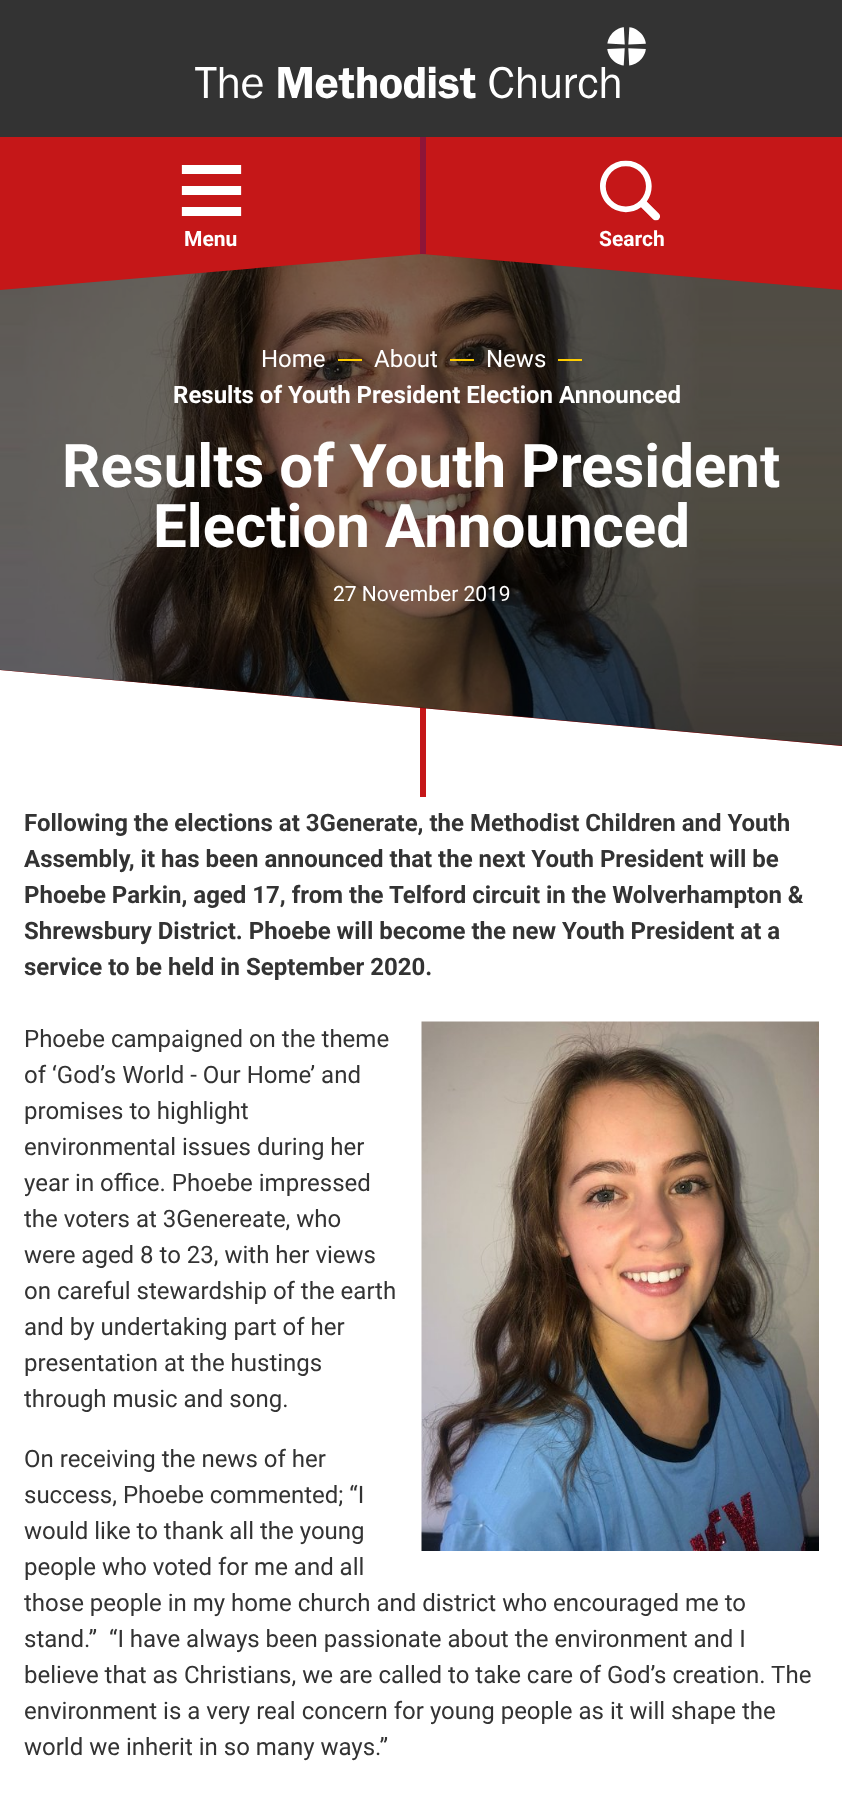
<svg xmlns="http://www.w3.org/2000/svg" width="842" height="1803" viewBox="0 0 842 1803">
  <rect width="100%" height="100%" fill="#ffffff"/>
  <rect x="420" y="707" width="6" height="90" fill="#c51718"/>
  <path d="M0 74V670L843 746V74Z" fill="#c51718"/>
  <image x="0" y="254" width="842" height="492" href="img4.png"/>
  <path d="M0 74V670L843 746V74Z" fill="#000000" fill-opacity="0.5"/>
  <rect x="0" y="0" width="842" height="137" fill="#333333"/>
  <image x="195" y="27" width="451" height="72" href="img1.png"/>
  <path d="M0 137V290L422 254L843 290V137Z" fill="#c51718"/>
  <image x="181" y="165" width="61" height="51" href="img2.png"/>
  <text x="184" y="246" font-family="Roboto" font-size="21" font-weight="bold" fill="#ffffff">Menu</text>
  <rect x="420" y="137" width="6" height="117" fill="#8e1538"/>
  <image x="600" y="160" width="60" height="61" href="img3.png"/>
  <text x="599" y="246" font-family="Roboto" font-size="21" font-weight="bold" fill="#ffffff">Search</text>
  <text x="261" y="367" font-family="Roboto" font-size="24" fill="#ffffff">Home</text>
  <rect x="338" y="359" width="24" height="2" fill="#ffcd00"/>
  <text x="374" y="367" font-family="Roboto" font-size="24" fill="#ffffff">About</text>
  <rect x="450" y="359" width="24" height="2" fill="#ffcd00"/>
  <text x="486" y="367" font-family="Roboto" font-size="24" fill="#ffffff">News</text>
  <rect x="558" y="359" width="24" height="2" fill="#ffcd00"/>
  <text x="173" y="403" font-family="Roboto" font-size="24" font-weight="bold" fill="#ffffff">Results of Youth President Election Announced</text>
  <text x="62" y="487" font-family="Roboto" font-size="60" font-weight="bold" fill="#ffffff">Results of Youth President</text>
  <text x="153" y="547" font-family="Roboto" font-size="60" font-weight="bold" fill="#ffffff">Election Announced</text>
  <text x="333" y="601" font-family="Roboto" font-size="21" fill="#ffffff">27 November 2019</text>
  <text x="24" y="831" font-family="Roboto" font-size="24" font-weight="bold" fill="#333333">Following the elections at 3Generate, the Methodist Children and Youth</text>
  <text x="24" y="867" font-family="Roboto" font-size="24" font-weight="bold" fill="#333333">Assembly, it has been announced that the next Youth President will be</text>
  <text x="24" y="903" font-family="Roboto" font-size="24" font-weight="bold" fill="#333333">Phoebe Parkin, aged 17, from the Telford circuit in the Wolverhampton &amp;</text>
  <text x="24" y="939" font-family="Roboto" font-size="24" font-weight="bold" fill="#333333">Shrewsbury District. Phoebe will become the new Youth President at a</text>
  <text x="24" y="975" font-family="Roboto" font-size="24" font-weight="bold" fill="#333333">service to be held in September 2020.</text>
  <image x="421" y="1021" width="398" height="530" href="img5.png"/>
  <text x="24" y="1047" font-family="Roboto" font-size="24" fill="#333333">Phoebe campaigned on the theme</text>
  <text x="24" y="1083" font-family="Roboto" font-size="24" fill="#333333">of ‘God’s World - Our Home’ and</text>
  <text x="24" y="1119" font-family="Roboto" font-size="24" fill="#333333">promises to highlight</text>
  <text x="24" y="1155" font-family="Roboto" font-size="24" fill="#333333">environmental issues during her</text>
  <text x="24" y="1191" font-family="Roboto" font-size="24" fill="#333333">year in office. Phoebe impressed</text>
  <text x="24" y="1227" font-family="Roboto" font-size="24" fill="#333333">the voters at 3Genereate, who</text>
  <text x="24" y="1263" font-family="Roboto" font-size="24" fill="#333333">were aged 8 to 23, with her views</text>
  <text x="24" y="1299" font-family="Roboto" font-size="24" fill="#333333">on careful stewardship of the earth</text>
  <text x="24" y="1335" font-family="Roboto" font-size="24" fill="#333333">and by undertaking part of her</text>
  <text x="24" y="1371" font-family="Roboto" font-size="24" fill="#333333">presentation at the hustings</text>
  <text x="24" y="1407" font-family="Roboto" font-size="24" fill="#333333">through music and song.</text>
  <text x="24" y="1467" font-family="Roboto" font-size="24" fill="#333333">On receiving the news of her</text>
  <text x="24" y="1503" font-family="Roboto" font-size="24" fill="#333333">success, Phoebe commented; “I</text>
  <text x="24" y="1539" font-family="Roboto" font-size="24" fill="#333333">would like to thank all the young</text>
  <text x="24" y="1575" font-family="Roboto" font-size="24" fill="#333333">people who voted for me and all</text>
  <text x="24" y="1611" font-family="Roboto" font-size="24" fill="#333333">those people in my home church and district who encouraged me to</text>
  <text x="24" y="1647" font-family="Roboto" font-size="24" fill="#333333" xml:space="preserve">stand.”  “I have always been passionate about the environment and I</text>
  <text x="24" y="1683" font-family="Roboto" font-size="24" fill="#333333">believe that as Christians, we are called to take care of God’s creation. The</text>
  <text x="24" y="1719" font-family="Roboto" font-size="24" fill="#333333">environment is a very real concern for young people as it will shape the</text>
  <text x="24" y="1755" font-family="Roboto" font-size="24" fill="#333333">world we inherit in so many ways.”</text>
</svg>
